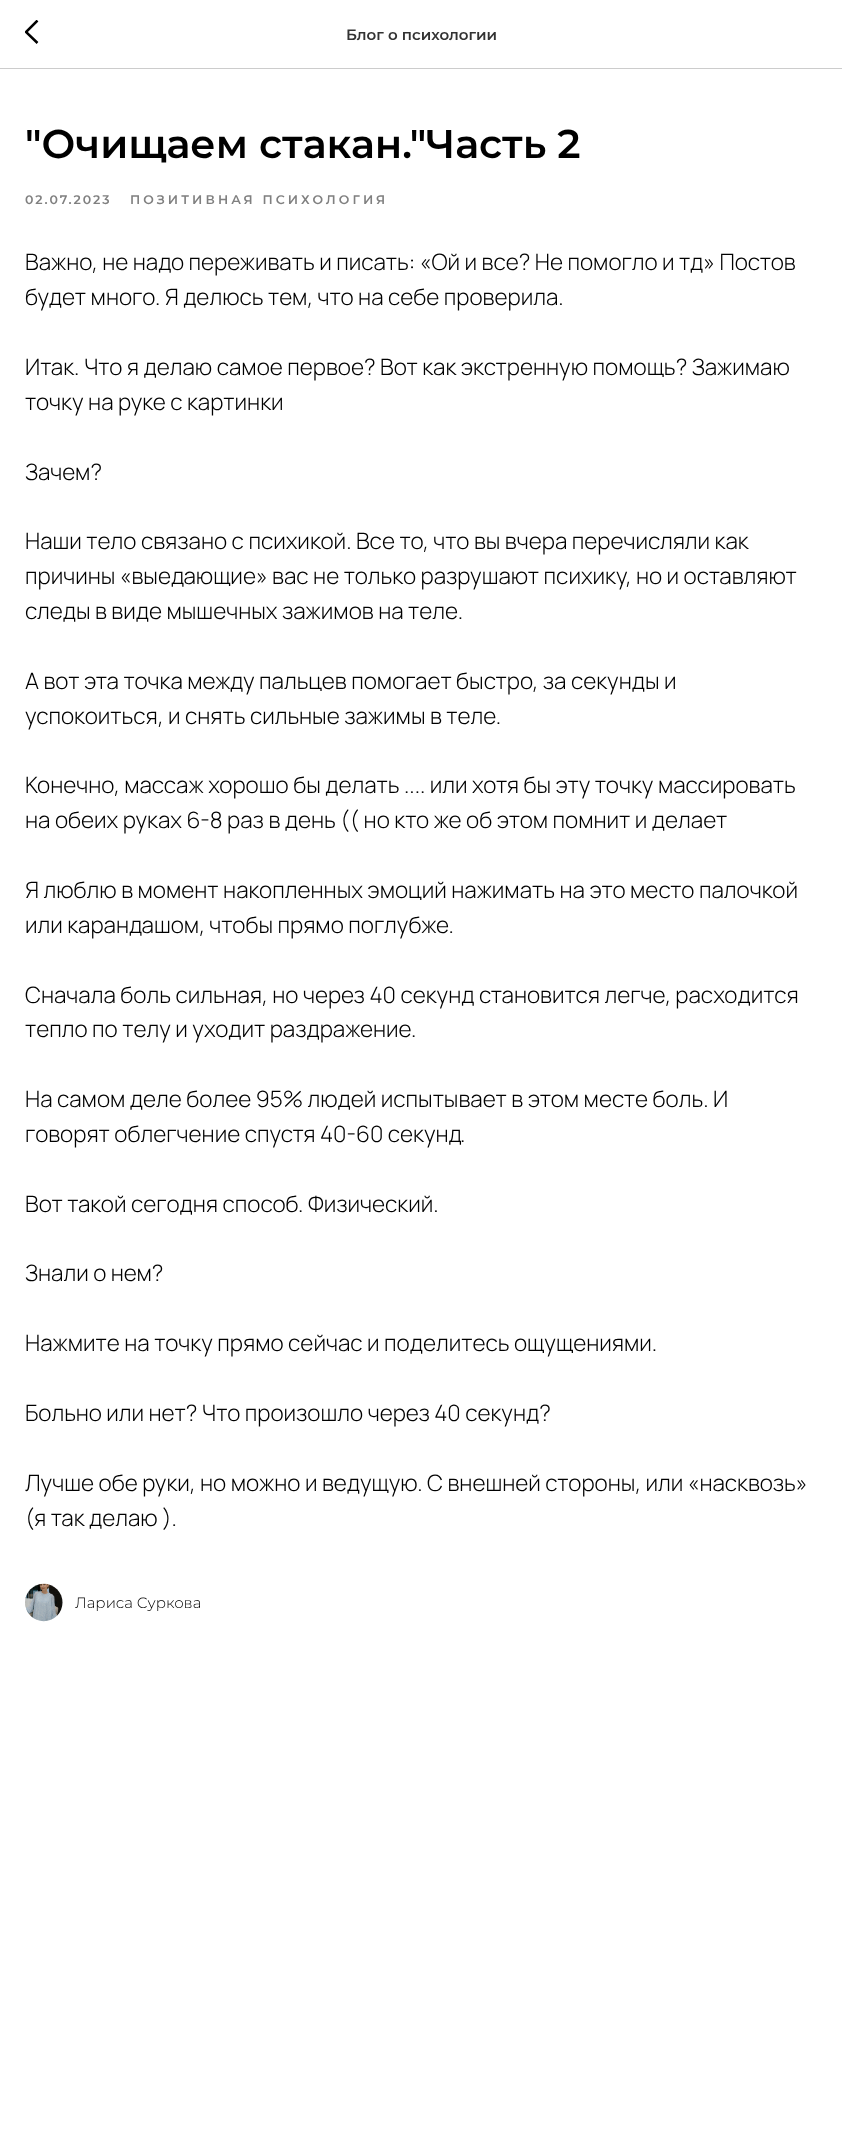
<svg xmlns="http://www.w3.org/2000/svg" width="842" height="2155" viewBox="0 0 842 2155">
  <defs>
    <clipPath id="clip1"><rect x="25" y="20" width="14" height="25"/></clipPath>
  </defs>
  <rect width="100%" height="100%" fill="#ffffff"/>
  <rect x="0" y="68" width="842" height="1" fill="#cccccc"/>
  <g clip-path="url(#clip1)">
    <path d="M37.5 43L26 32L37.5 20.5" fill="none" stroke="#000000" stroke-width="2.5"/>
  </g>
  <text x="346" y="40" font-family="Montserrat" font-size="15" font-weight="600" fill="#333333">Блог о психологии</text>
  <text x="25" y="158" font-family="Montserrat" font-size="40" font-weight="600" fill="#000000">"Очищаем стакан."Часть 2</text>
  <text x="25" y="204" font-family="Montserrat" font-size="12.5" font-weight="600" letter-spacing="1.9" fill="#808080">02.07.2023</text>
  <text x="130" y="204" font-family="Montserrat" font-size="12.5" font-weight="600" letter-spacing="3.1" fill="#808080">ПОЗИТИВНАЯ ПСИХОЛОГИЯ</text>
  <text x="25" y="270" font-family="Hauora" font-size="22.5" font-weight="300" fill="#000000">Важно, не надо переживать и писать: «Ой и все? Не помогло и тд» Постов</text>
  <text x="25" y="305" font-family="Hauora" font-size="22.5" font-weight="300" fill="#000000">будет много. Я делюсь тем, что на себе проверила.</text>
  <text x="25" y="375" font-family="Hauora" font-size="22.5" font-weight="300" fill="#000000">Итак. Что я делаю самое первое? Вот как экстренную помощь? Зажимаю</text>
  <text x="25" y="410" font-family="Hauora" font-size="22.5" font-weight="300" fill="#000000">точку на руке с картинки</text>
  <text x="25" y="480" font-family="Hauora" font-size="22.5" font-weight="300" fill="#000000">Зачем?</text>
  <text x="25" y="549" font-family="Hauora" font-size="22.5" font-weight="300" fill="#000000">Наши тело связано с психикой. Все то, что вы вчера перечисляли как</text>
  <text x="25" y="584" font-family="Hauora" font-size="22.5" font-weight="300" fill="#000000">причины «выедающие» вас не только разрушают психику, но и оставляют</text>
  <text x="25" y="619" font-family="Hauora" font-size="22.5" font-weight="300" fill="#000000">следы в виде мышечных зажимов на теле.</text>
  <text x="25" y="689" font-family="Hauora" font-size="22.5" font-weight="300" fill="#000000">А вот эта точка между пальцев помогает быстро, за секунды и</text>
  <text x="25" y="724" font-family="Hauora" font-size="22.5" font-weight="300" fill="#000000">успокоиться, и снять сильные зажимы в теле.</text>
  <text x="25" y="793" font-family="Hauora" font-size="22.5" font-weight="300" fill="#000000">Конечно, массаж хорошо бы делать .... или хотя бы эту точку массировать</text>
  <text x="25" y="828" font-family="Hauora" font-size="22.5" font-weight="300" fill="#000000">на обеих руках 6-8 раз в день (( но кто же об этом помнит и делает</text>
  <text x="25" y="898" font-family="Hauora" font-size="22.5" font-weight="300" fill="#000000">Я люблю в момент накопленных эмоций нажимать на это место палочкой</text>
  <text x="25" y="933" font-family="Hauora" font-size="22.5" font-weight="300" fill="#000000">или карандашом, чтобы прямо поглубже.</text>
  <text x="25" y="1003" font-family="Hauora" font-size="22.5" font-weight="300" fill="#000000">Сначала боль сильная, но через 40 секунд становится легче, расходится</text>
  <text x="25" y="1037" font-family="Hauora" font-size="22.5" font-weight="300" fill="#000000">тепло по телу и уходит раздражение.</text>
  <text x="25" y="1107" font-family="Hauora" font-size="22.5" font-weight="300" fill="#000000">На самом деле более 95% людей испытывает в этом месте боль. И</text>
  <text x="25" y="1142" font-family="Hauora" font-size="22.5" font-weight="300" fill="#000000">говорят облегчение спустя 40-60 секунд.</text>
  <text x="25" y="1212" font-family="Hauora" font-size="22.5" font-weight="300" fill="#000000">Вот такой сегодня способ. Физический.</text>
  <text x="25" y="1281" font-family="Hauora" font-size="22.5" font-weight="300" fill="#000000">Знали о нем?</text>
  <text x="25" y="1351" font-family="Hauora" font-size="22.5" font-weight="300" fill="#000000">Нажмите на точку прямо сейчас и поделитесь ощущениями.</text>
  <text x="25" y="1421" font-family="Hauora" font-size="22.5" font-weight="300" fill="#000000">Больно или нет? Что произошло через 40 секунд?</text>
  <text x="25" y="1491" font-family="Hauora" font-size="22.5" font-weight="300" fill="#000000">Лучше обе руки, но можно и ведущую. С внешней стороны, или «насквозь»</text>
  <text x="25" y="1526" font-family="Hauora" font-size="22.5" font-weight="300" fill="#000000">(я так делаю ).</text>
  <image x="25" y="1583" width="38" height="39" href="img1.png"/>
  <text x="75" y="1608" font-family="Montserrat" font-size="15" font-weight="300" fill="#000000">Лариса Суркова</text>
</svg>
